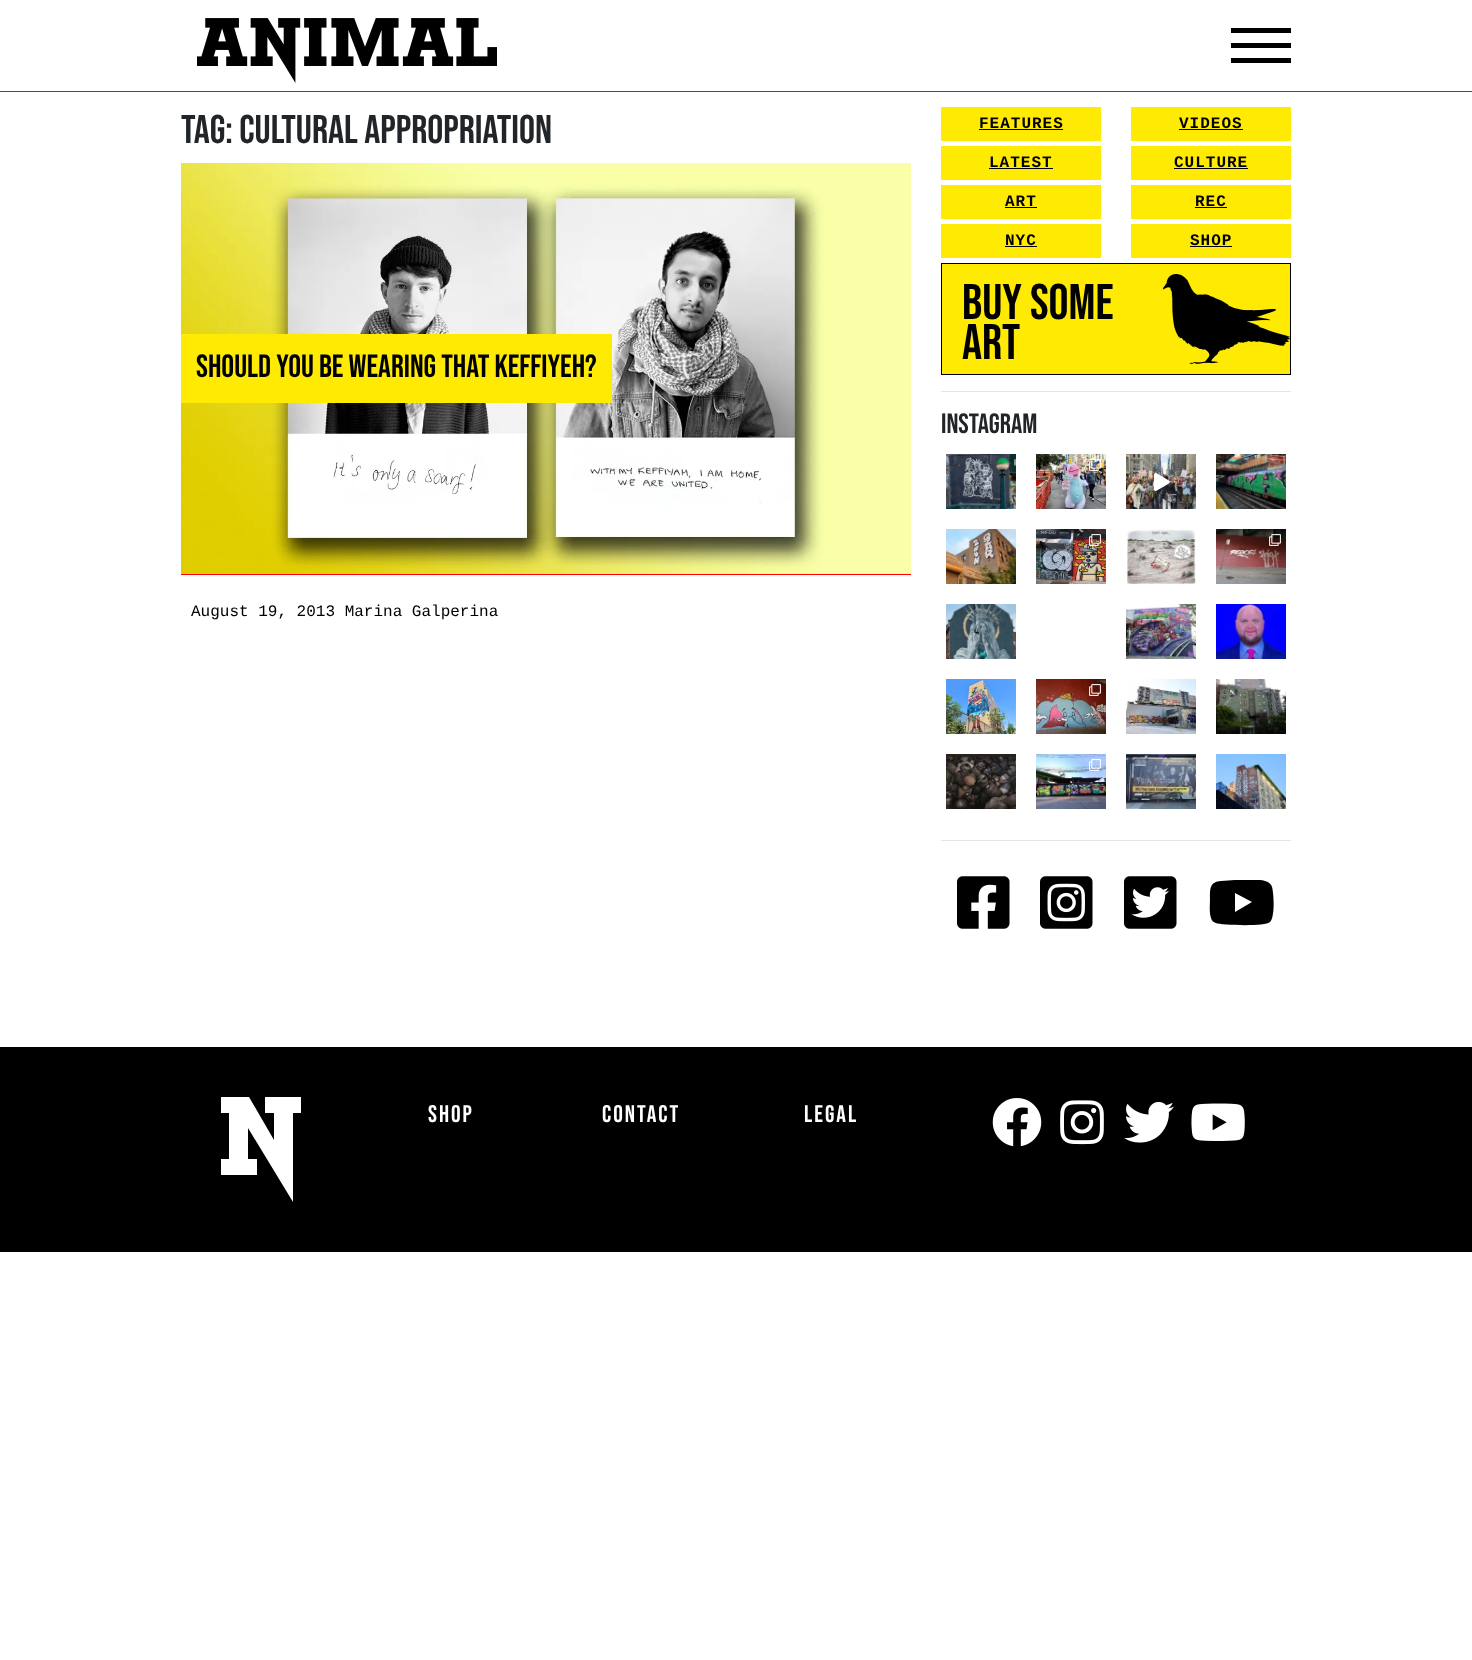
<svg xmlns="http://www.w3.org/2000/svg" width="1472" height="1660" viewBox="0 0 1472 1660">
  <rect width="100%" height="100%" fill="#ffffff"/>
  <rect x="0" y="91" width="1472" height="1" fill="#ff0000"/>
  <image x="197" y="18" width="300" height="65" href="img1.png"/>
  <rect x="1231" y="28" width="60" height="5" fill="#000000"/>
  <rect x="1231" y="43" width="60" height="5" fill="#000000"/>
  <rect x="1231" y="58" width="60" height="5" fill="#000000"/>
  <text x="181" y="143" font-family="Bebas Neue" font-size="40" fill="#212529">Tag: Cultural Appropriation</text>
  <rect x="181" y="574" width="730" height="1" fill="#ff0000"/>
  <image x="181" y="163" width="730" height="411" href="img2.png"/>
  <rect x="181" y="334" width="431" height="69" fill="#ffea03"/>
  <text x="196" y="377" font-family="Bebas Neue" font-size="32" fill="#000000">Should You Be Wearing That Keffiyeh?</text>
  <text x="191" y="616" font-family="Liberation Mono" font-size="16" fill="#000000">August 19, 2013 Marina Galperina</text>
  <rect x="941" y="107" width="160" height="34" fill="#ffea03"/>
  <text x="979" y="128" font-family="Liberation Mono" font-size="16" font-weight="bold" letter-spacing="1" fill="#000000">FEATURES</text>
  <rect x="979" y="129" width="84" height="1" fill="#000000"/>
  <rect x="941" y="146" width="160" height="34" fill="#ffea03"/>
  <text x="989" y="167" font-family="Liberation Mono" font-size="16" font-weight="bold" letter-spacing="1" fill="#000000">LATEST</text>
  <rect x="989" y="168" width="64" height="1" fill="#000000"/>
  <rect x="941" y="185" width="160" height="34" fill="#ffea03"/>
  <text x="1005" y="206" font-family="Liberation Mono" font-size="16" font-weight="bold" letter-spacing="1" fill="#000000">ART</text>
  <rect x="1005" y="207" width="32" height="1" fill="#000000"/>
  <rect x="941" y="224" width="160" height="34" fill="#ffea03"/>
  <text x="1005" y="245" font-family="Liberation Mono" font-size="16" font-weight="bold" letter-spacing="1" fill="#000000">NYC</text>
  <rect x="1005" y="246" width="32" height="1" fill="#000000"/>
  <rect x="1131" y="107" width="160" height="34" fill="#ffea03"/>
  <text x="1179" y="128" font-family="Liberation Mono" font-size="16" font-weight="bold" letter-spacing="1" fill="#000000">VIDEOS</text>
  <rect x="1179" y="129" width="64" height="1" fill="#000000"/>
  <rect x="1131" y="146" width="160" height="34" fill="#ffea03"/>
  <text x="1174" y="167" font-family="Liberation Mono" font-size="16" font-weight="bold" letter-spacing="1" fill="#000000">CULTURE</text>
  <rect x="1174" y="168" width="74" height="1" fill="#000000"/>
  <rect x="1131" y="185" width="160" height="34" fill="#ffea03"/>
  <text x="1195" y="206" font-family="Liberation Mono" font-size="16" font-weight="bold" letter-spacing="1" fill="#000000">REC</text>
  <rect x="1195" y="207" width="32" height="1" fill="#000000"/>
  <rect x="1131" y="224" width="160" height="34" fill="#ffea03"/>
  <text x="1190" y="245" font-family="Liberation Mono" font-size="16" font-weight="bold" letter-spacing="1" fill="#000000">SHOP</text>
  <rect x="1190" y="246" width="42" height="1" fill="#000000"/>
  <rect x="941.5" y="263.5" width="349" height="111" fill="#ffea03" stroke="#000000"/>
  <text x="962" y="319" font-family="Bebas Neue" font-size="50" fill="#000000">Buy Some</text>
  <text x="962" y="359" font-family="Bebas Neue" font-size="50" fill="#000000">Art</text>
  <image x="1163" y="274" width="127" height="90" href="img3.png"/>
  <rect x="941" y="391" width="350" height="1" fill="#e6e6e6"/>
  <text x="941" y="433" font-family="Bebas Neue" font-size="28" fill="#212529">Instagram</text>
  <image x="946" y="454" width="70" height="55" href="img4.png"/>
  <image x="1036" y="454" width="70" height="55" href="img5.png"/>
  <image x="1089" y="459" width="12" height="12" href="img6.png"/>
  <image x="1126" y="454" width="70" height="55" href="img7.png"/>
  <image x="1154" y="473" width="16" height="18" href="img8.png"/>
  <image x="1216" y="454" width="70" height="55" href="img9.png"/>
  <image x="946" y="529" width="70" height="55" href="img10.png"/>
  <image x="1036" y="529" width="70" height="55" href="img11.png"/>
  <image x="1089" y="534" width="12" height="12" href="img12.png"/>
  <image x="1127" y="529" width="69" height="55" href="img13.png"/>
  <image x="1216" y="529" width="70" height="55" href="img14.png"/>
  <image x="1269" y="534" width="12" height="12" href="img15.png"/>
  <image x="946" y="604" width="70" height="55" href="img16.png"/>
  <image x="1126" y="604" width="70" height="55" href="img17.png"/>
  <image x="1216" y="604" width="70" height="55" href="img18.png"/>
  <image x="946" y="679" width="70" height="55" href="img19.png"/>
  <image x="1036" y="679" width="70" height="55" href="img20.png"/>
  <image x="1089" y="684" width="12" height="12" href="img21.png"/>
  <image x="1126" y="679" width="70" height="55" href="img22.png"/>
  <image x="1216" y="679" width="70" height="55" href="img23.png"/>
  <image x="946" y="754" width="70" height="55" href="img24.png"/>
  <image x="1036" y="754" width="70" height="55" href="img25.png"/>
  <image x="1089" y="759" width="12" height="12" href="img26.png"/>
  <image x="1126" y="754" width="70" height="55" href="img27.png"/>
  <image x="1216" y="754" width="70" height="55" href="img28.png"/>
  <rect x="941" y="840" width="350" height="1" fill="#e6e6e6"/>
  <image x="957" y="876" width="53" height="53" href="img29.png"/>
  <image x="1040" y="876" width="53" height="53" href="img30.png"/>
  <image x="1124" y="876" width="53" height="53" href="img31.png"/>
  <path d="M1272 887C1274 894 1275 917 1270 922C1265 927 1220 925 1216 923C1213 922 1212 921 1211 918C1209 912 1210 904 1210 898C1210 888 1210 882 1221 881L1235 880H1255C1261 880 1270 880 1272 887ZM1235 912L1252 902L1235 893Z" fill="#000000"/>
  <rect x="0" y="1047" width="1472" height="205" fill="#000000"/>
  <path d="M221 1159H229V1113H221V1097H249L274 1140V1113H265V1097H301V1113H293V1202L248 1128V1159H257V1175H221Z" fill="#ffffff"/>
  <text x="428" y="1122" font-family="Bebas Neue" font-size="24" letter-spacing="2" fill="#ffffff">Shop</text>
  <text x="602" y="1122" font-family="Bebas Neue" font-size="24" letter-spacing="2" fill="#ffffff">Contact</text>
  <text x="804" y="1122" font-family="Bebas Neue" font-size="24" letter-spacing="2" fill="#ffffff">Legal</text>
  <image x="992" y="1098" width="50" height="49" href="img32.png"/>
  <image x="1060" y="1100" width="44" height="45" href="img33.png"/>
  <image x="1124" y="1101" width="50" height="42" href="img34.png"/>
  <image x="1191" y="1103" width="54" height="38" href="img35.png"/>
</svg>
